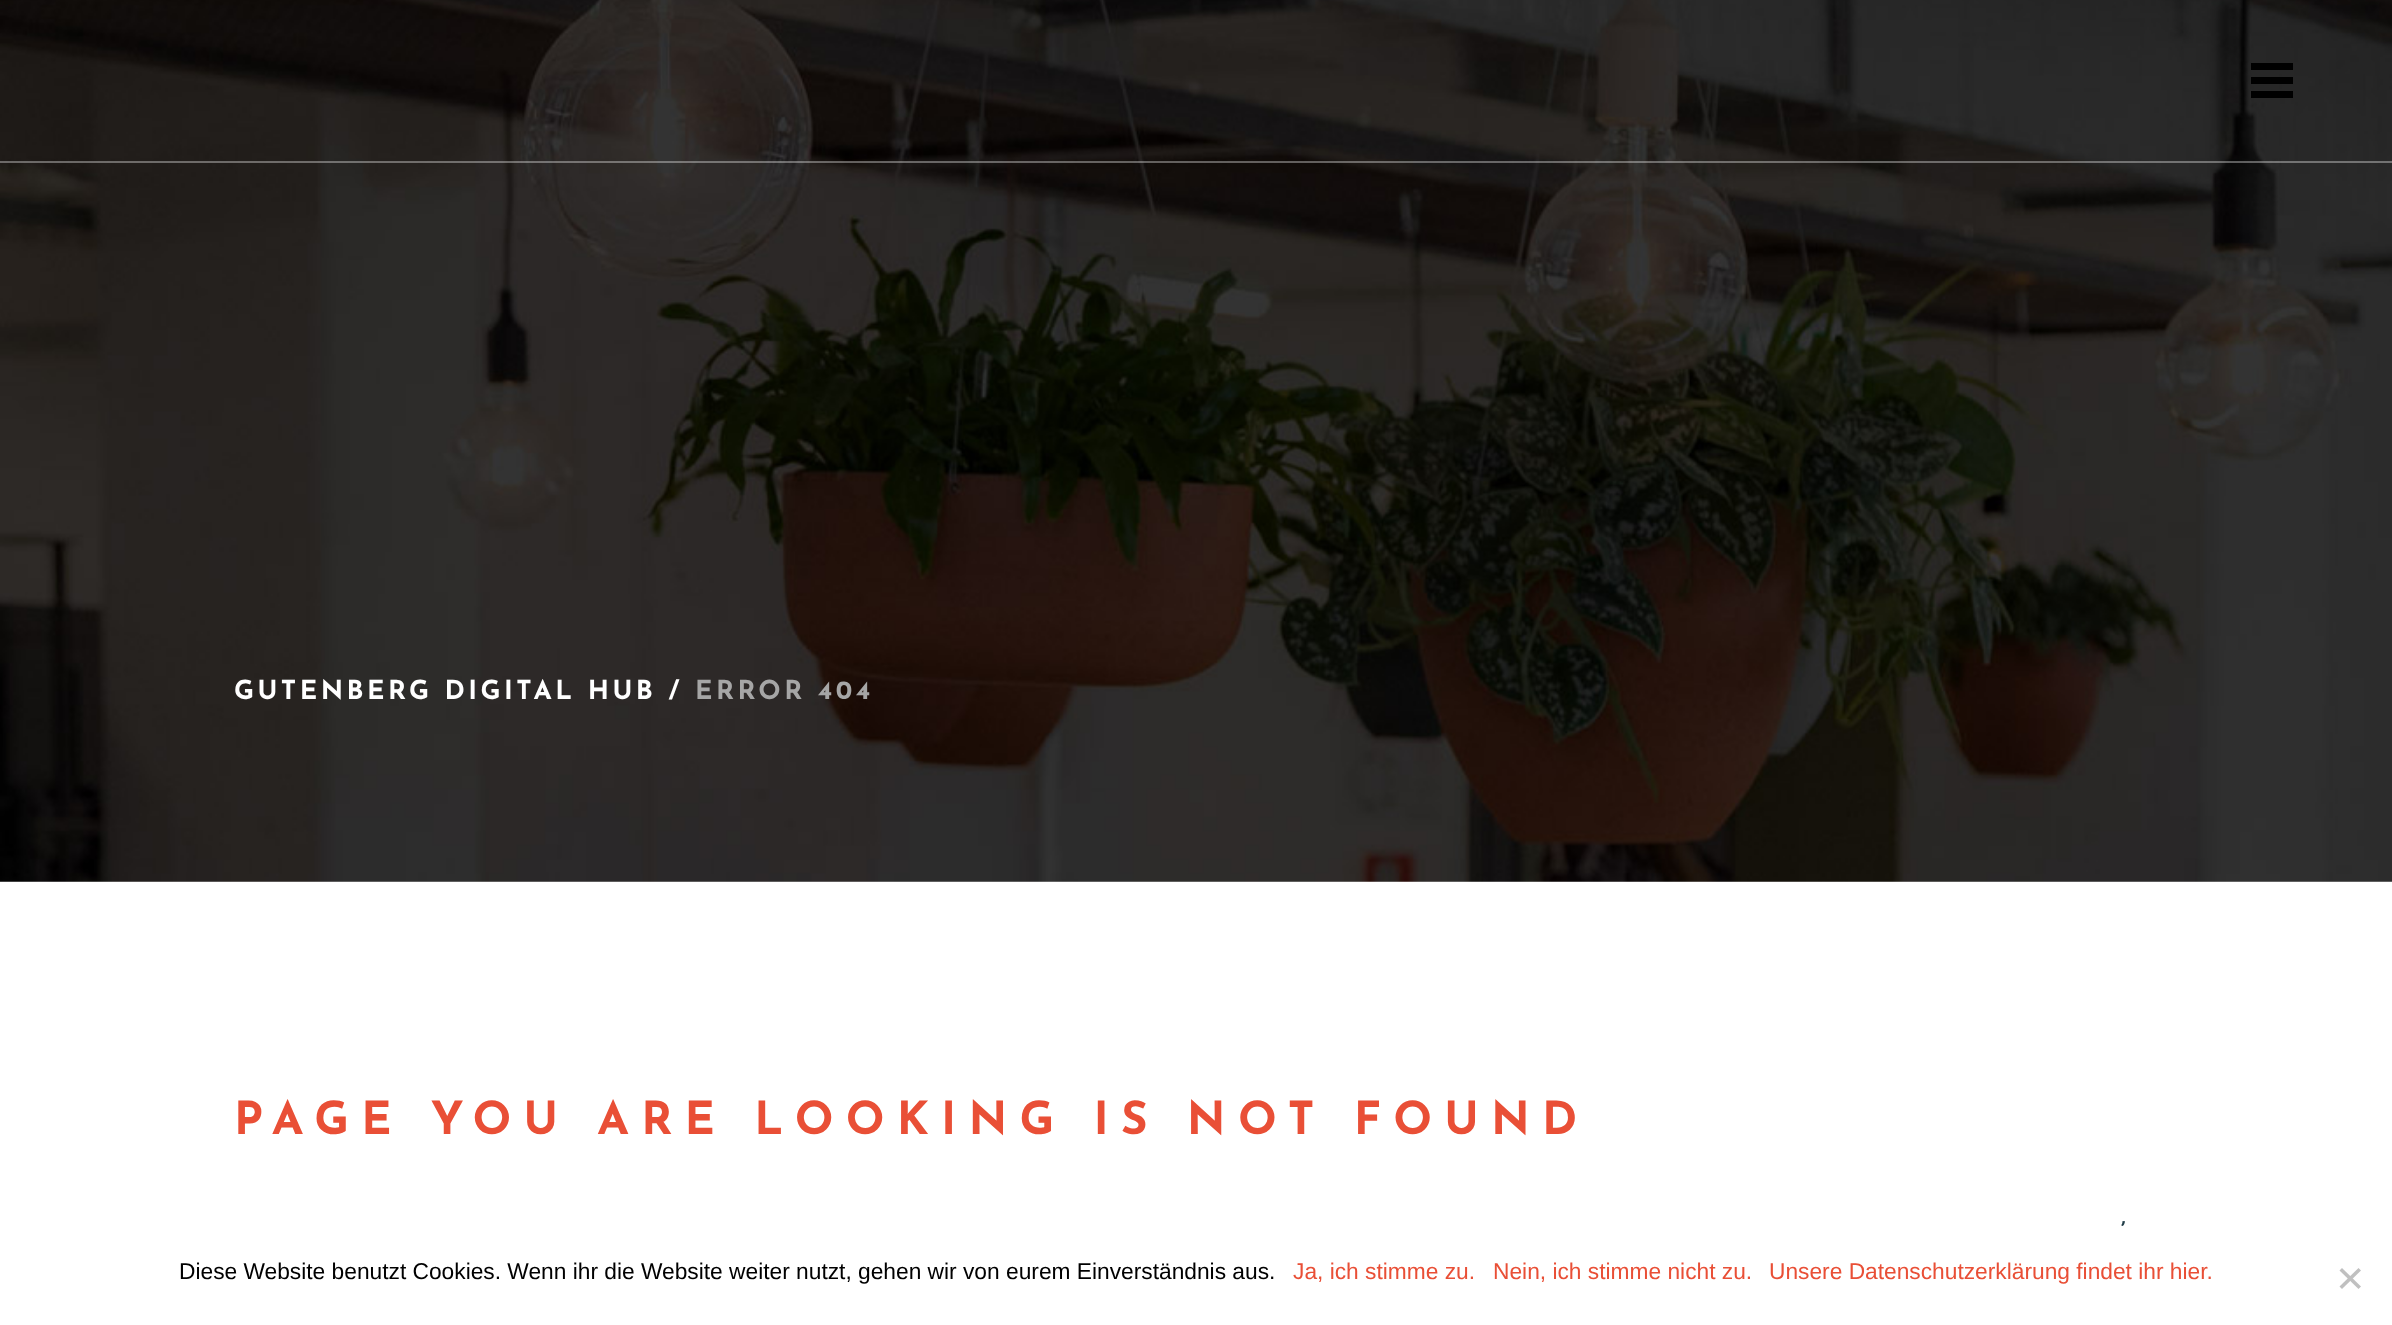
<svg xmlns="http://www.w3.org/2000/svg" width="2392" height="1325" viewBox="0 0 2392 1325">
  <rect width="100%" height="100%" fill="#ffffff"/>
  <image x="0" y="0" width="2392" height="882" href="img1.png"/>
  <rect x="0" y="161" width="2392" height="2" fill="#ffffff" fill-opacity="0.35"/>
  <rect x="2251" y="77" width="42" height="7" fill="#000000"/>
  <rect x="2251" y="63" width="42" height="7" fill="#000000"/>
  <rect x="2251" y="91" width="42" height="7" fill="#000000"/>
  <text x="234" y="699" font-family="Josefin Sans" font-size="26.25" font-weight="bold" letter-spacing="3.5" fill="#ffffff">GUTENBERG DIGITAL HUB /</text>
  <text x="695" y="699" font-family="Josefin Sans" font-size="26.25" font-weight="bold" letter-spacing="3.5" fill="#a6a6a6">ERROR 404</text>
  <text x="234" y="1134" font-family="Josefin Sans" font-size="45.5" font-weight="bold" letter-spacing="12.25" fill="#e94f36">PAGE YOU ARE LOOKING IS NOT FOUND</text>
  <text x="2120" y="1244" font-family="Josefin Sans" font-size="32" fill="#203c47">’</text>
  <text x="179" y="1279" font-family="Liberation Sans" font-size="22.75" fill="#000000">Diese Website benutzt Cookies. Wenn ihr die Website weiter nutzt, gehen wir von eurem Einverständnis aus.</text>
  <text x="1293" y="1279" font-family="Liberation Sans" font-size="22.75" fill="#e94f36">Ja, ich stimme zu.</text>
  <text x="1493" y="1279" font-family="Liberation Sans" font-size="22.75" fill="#e94f36">Nein, ich stimme nicht zu.</text>
  <text x="1769" y="1279" font-family="Liberation Sans" font-size="22.75" fill="#e94f36">Unsere Datenschutzerklärung findet ihr hier.</text>
  <path d="M2358.5 1268L2361 1270.5L2342 1289L2339.5 1286.5Z" fill="#c0c0c0"/>
  <path d="M2339.5 1270.5L2342 1268L2361 1286.5L2358.5 1289Z" fill="#c0c0c0"/>
</svg>
